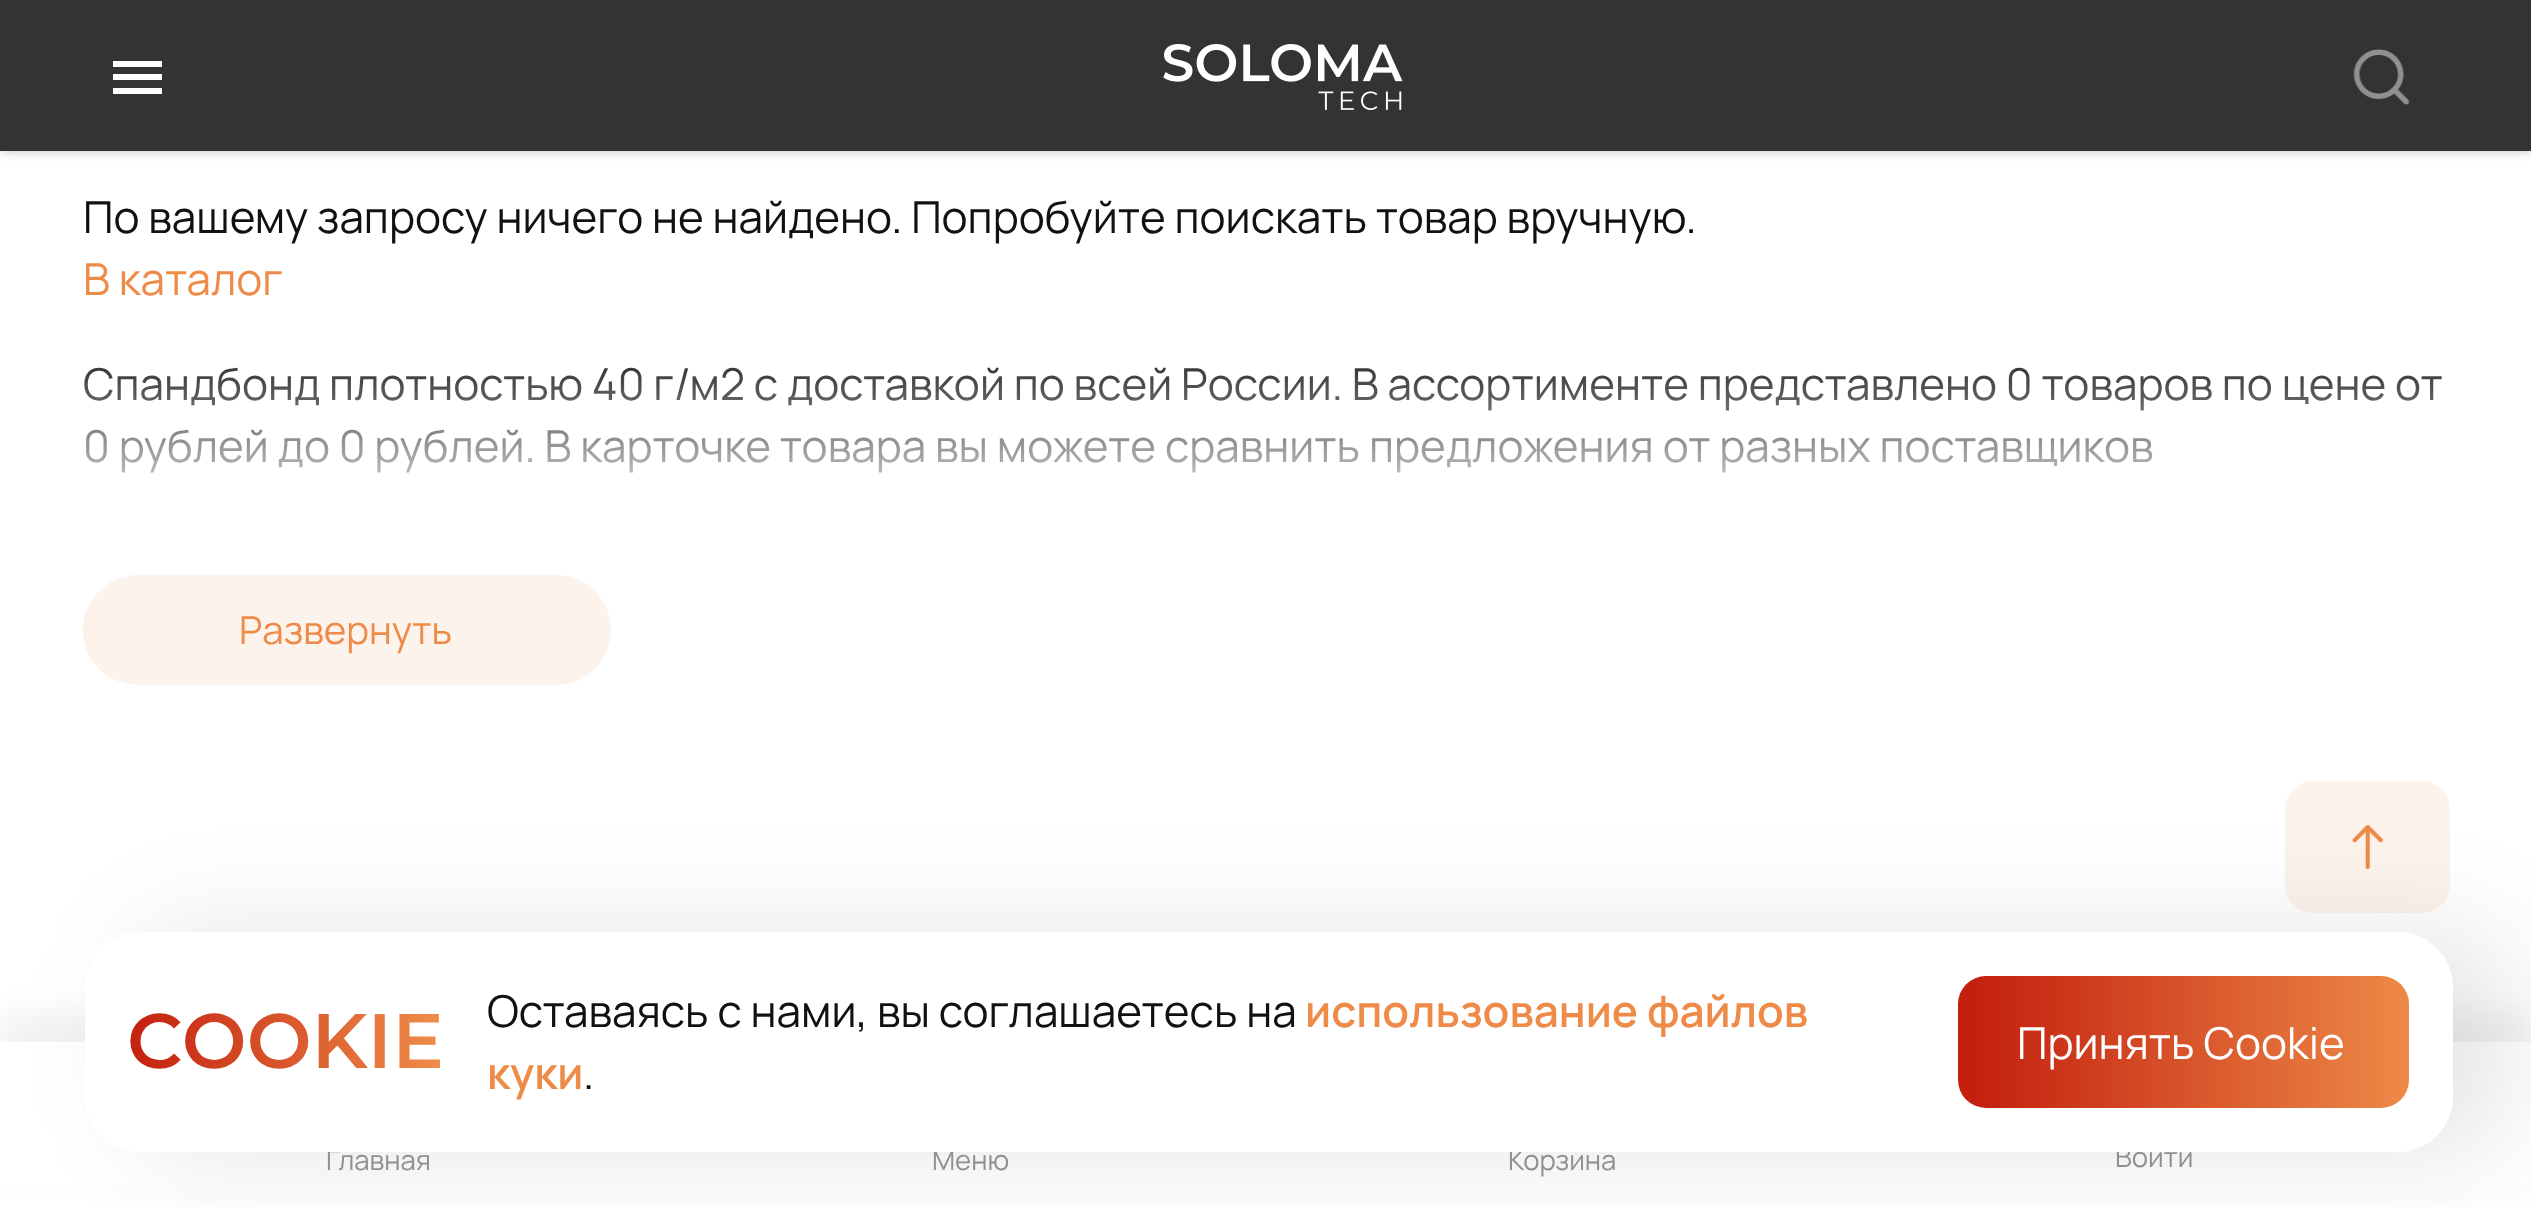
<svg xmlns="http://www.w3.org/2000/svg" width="2531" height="1207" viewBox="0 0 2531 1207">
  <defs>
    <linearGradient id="g1" gradientUnits="userSpaceOnUse" x1="127" y1="1042" x2="435" y2="1042"><stop offset="0" stop-color="#c3200e"/><stop offset="1" stop-color="#ee8b48"/></linearGradient>
    <filter id="blur1" x="-50%" y="-200%" width="200%" height="500%"><feGaussianBlur stdDeviation="5.5"/></filter>
    <linearGradient id="g2" gradientUnits="userSpaceOnUse" x1="1266" y1="531" x2="1266" y2="355"><stop offset="0" stop-color="#ffffff"/><stop offset="1" stop-color="#ffffff" stop-opacity="0.1"/></linearGradient>
    <linearGradient id="g3" gradientUnits="userSpaceOnUse" x1="-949" y1="630" x2="618" y2="630"><stop offset="0" stop-color="#ee8b48"/><stop offset="0.33" stop-color="#ee8b48"/><stop offset="0.67" stop-color="#fdf3ed"/><stop offset="1" stop-color="#fdf3ed"/></linearGradient>
    <filter id="blur2" x="-50%" y="-200%" width="200%" height="500%"><feGaussianBlur stdDeviation="14"/></filter>
    <filter id="blur3" x="-50%" y="-200%" width="200%" height="500%"><feGaussianBlur stdDeviation="55"/></filter>
    <linearGradient id="g4" gradientUnits="userSpaceOnUse" x1="1064" y1="1042" x2="2417" y2="1042"><stop offset="0" stop-color="#ee8b48"/><stop offset="0.33" stop-color="#c3200e"/><stop offset="0.67" stop-color="#c3200e"/><stop offset="1" stop-color="#ee8b48"/></linearGradient>
  </defs>
  <rect width="100%" height="100%" fill="#ffffff"/>
  <rect x="0" y="0" width="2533" height="151" fill="#000000" fill-opacity="0.25" filter="url(#blur1)"/>
  <rect x="0" y="0" width="2531" height="151" fill="#333333"/>
  <rect x="113" y="61" width="49" height="6" fill="#ffffff"/>
  <rect x="113" y="74" width="49" height="6" fill="#ffffff"/>
  <rect x="113" y="88" width="49" height="6" fill="#ffffff"/>
  <image x="1163" y="44" width="240" height="66" href="img1.png"/>
  <image x="2353" y="49" width="57" height="56" href="img2.png"/>
  <text x="83" y="233" font-family="Manrope" font-size="44" fill="#111111">По вашему запросу ничего не найдено. Попробуйте поискать товар вручную.</text>
  <text x="83" y="295" font-family="Manrope" font-size="44" fill="#ee8b48">В каталог</text>
  <text x="83" y="400" font-family="Manrope" font-size="44" fill="#111111">Спандбонд плотностью 40 г/м2 с доставкой по всей России. В ассортименте представлено 0 товаров по цене от</text>
  <text x="83" y="462" font-family="Manrope" font-size="44" fill="#111111">0 рублей до 0 рублей. В карточке товара вы можете сравнить предложения от разных поставщиков</text>
  <rect x="83" y="367" width="2359" height="106" fill="url(#g2)"/>
  <rect x="83" y="575" width="528" height="110" rx="55" fill="url(#g3)"/>
  <text x="239" y="644" font-family="Manrope" font-size="38.5" fill="#ee8b48">Развернуть</text>
  <rect x="2285" y="781" width="165" height="132" rx="28" fill="#fdf3ed"/>
  <image x="2351" y="825" width="33" height="44" href="img3.png"/>
  <rect x="0" y="1012" width="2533" height="165" fill="#000000" fill-opacity="0.05" filter="url(#blur2)"/>
  <rect x="0" y="1042" width="2531" height="147" fill="#ffffff"/>
  <rect x="140" y="932" width="2368" height="220" rx="55" fill="#000000" fill-opacity="0.1" filter="url(#blur3)"/>
  <text x="326" y="1170" font-family="Manrope" font-size="27.5" fill="#909090">Главная</text>
  <text x="932" y="1170" font-family="Manrope" font-size="27.5" fill="#909090">Меню</text>
  <text x="1508" y="1170" font-family="Manrope" font-size="27.5" fill="#909090">Корзина</text>
  <text x="2115" y="1167" font-family="Manrope" font-size="27.5" fill="#909090">Войти</text>
  <rect x="85" y="932" width="2368" height="220" rx="55" fill="#ffffff"/>
  <text x="127" y="1068" font-family="Montserrat" font-size="77" font-weight="600" fill="url(#g1)">COOKIE</text>
  <text x="487" y="1027" font-family="Manrope" font-size="44" fill="#111111">Оставаясь с нами, вы соглашаетесь на</text>
  <text x="1305" y="1027" font-family="Manrope" font-size="44" font-weight="600" fill="#ee8b48">использование файлов</text>
  <text x="487" y="1089" font-family="Manrope" font-size="44" font-weight="600" fill="#ee8b48">куки</text>
  <text x="583" y="1089" font-family="Manrope" font-size="44" fill="#111111">.</text>
  <rect x="1958" y="976" width="451" height="132" rx="28" fill="url(#g4)"/>
  <text x="2017" y="1059" font-family="Manrope" font-size="44" fill="#ffffff">Принять Cookie</text>
</svg>
